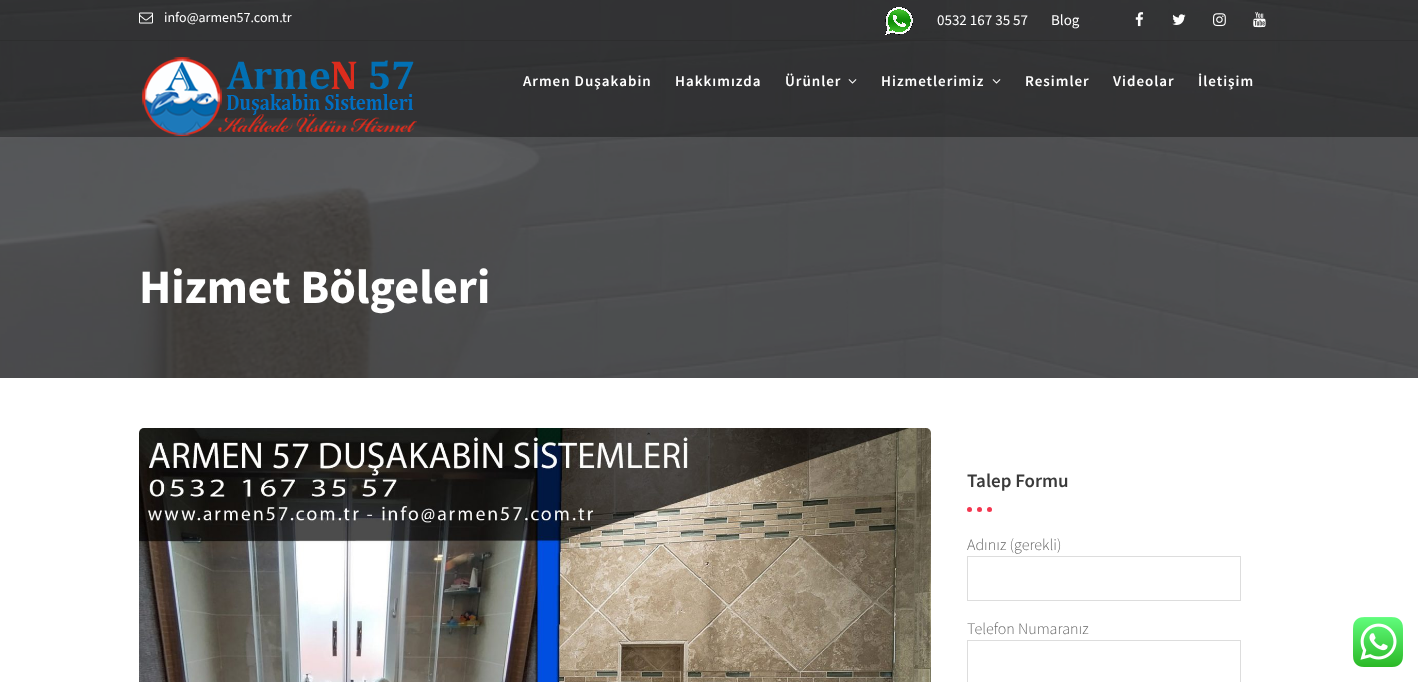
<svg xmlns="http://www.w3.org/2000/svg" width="1418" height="682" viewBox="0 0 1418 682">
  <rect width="100%" height="100%" fill="#ffffff"/>
  <image x="0" y="0" width="1418" height="378" href="img10.png"/>
  <rect x="0" y="0" width="1418" height="41" fill="#000000" fill-opacity="0.35"/>
  <rect x="0" y="40" width="1418" height="1" fill="#ffffff" fill-opacity="0.1"/>
  <image x="139" y="12" width="14" height="12" href="img1.png"/>
  <text x="164" y="22" font-family="Source Sans Pro" font-size="14" fill="#ffffff">info@armen57.com.tr</text>
  <image x="885" y="7" width="28" height="28" href="img2.png"/>
  <text x="937" y="25" font-family="Source Sans Pro" font-size="15" fill="#ffffff">0532 167 35 57</text>
  <text x="1051" y="25" font-family="Source Sans Pro" font-size="15" fill="#ffffff">Blog</text>
  <image x="1135" y="12" width="9" height="15" href="img3.png"/>
  <image x="1172" y="14" width="14" height="11" href="img4.png"/>
  <image x="1213" y="13" width="13" height="14" href="img5.png"/>
  <image x="1253" y="12" width="13" height="16" href="img6.png"/>
  <rect x="0" y="40" width="1418" height="97" fill="#000000" fill-opacity="0.35"/>
  <image x="142" y="57" width="275" height="79" href="img7.png"/>
  <text x="523" y="86" font-family="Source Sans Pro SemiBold" font-size="15" font-weight="600" letter-spacing="1" fill="#ffffff">Armen Duşakabin</text>
  <text x="675" y="86" font-family="Source Sans Pro SemiBold" font-size="15" font-weight="600" letter-spacing="1" fill="#ffffff">Hakkımızda</text>
  <text x="785" y="86" font-family="Source Sans Pro SemiBold" font-size="15" font-weight="600" letter-spacing="1" fill="#ffffff">Ürünler</text>
  <image x="848" y="79" width="9" height="5" href="img8.png"/>
  <text x="881" y="86" font-family="Source Sans Pro SemiBold" font-size="15" font-weight="600" letter-spacing="1" fill="#ffffff">Hizmetlerimiz</text>
  <image x="992" y="79" width="9" height="5" href="img9.png"/>
  <text x="1025" y="86" font-family="Source Sans Pro SemiBold" font-size="15" font-weight="600" letter-spacing="1" fill="#ffffff">Resimler</text>
  <text x="1113" y="86" font-family="Source Sans Pro SemiBold" font-size="15" font-weight="600" letter-spacing="1" fill="#ffffff">Videolar</text>
  <text x="1198" y="86" font-family="Source Sans Pro SemiBold" font-size="15" font-weight="600" letter-spacing="1" fill="#ffffff">İletişim</text>
  <text x="139" y="303" font-family="Source Sans Pro" font-size="48" font-weight="bold" fill="#ffffff">Hizmet Bölgeleri</text>
  <image x="139" y="428" width="792" height="254" href="img11.png"/>
  <text x="967" y="487" font-family="Source Sans Pro SemiBold" font-size="19" font-weight="600" fill="#3a3a3a">Talep Formu</text>
  <circle cx="969.5" cy="509.5" r="2.5" fill="#f4364f"/>
  <circle cx="989.5" cy="509.5" r="2.5" fill="#f4364f"/>
  <circle cx="979.5" cy="509.5" r="2.5" fill="#f4364f"/>
  <text x="967" y="550" font-family="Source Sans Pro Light" font-size="16" font-weight="300" fill="#666666">Adınız (gerekli)</text>
  <rect x="967.5" y="556.5" width="273" height="44" fill="none" stroke="#dddddd"/>
  <text x="967" y="634" font-family="Source Sans Pro Light" font-size="16" font-weight="300" fill="#666666">Telefon Numaranız</text>
  <rect x="967.5" y="640.5" width="273" height="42" fill="none" stroke="#dddddd"/>
  <image x="1353" y="617" width="50" height="50" href="img12.png"/>
</svg>
